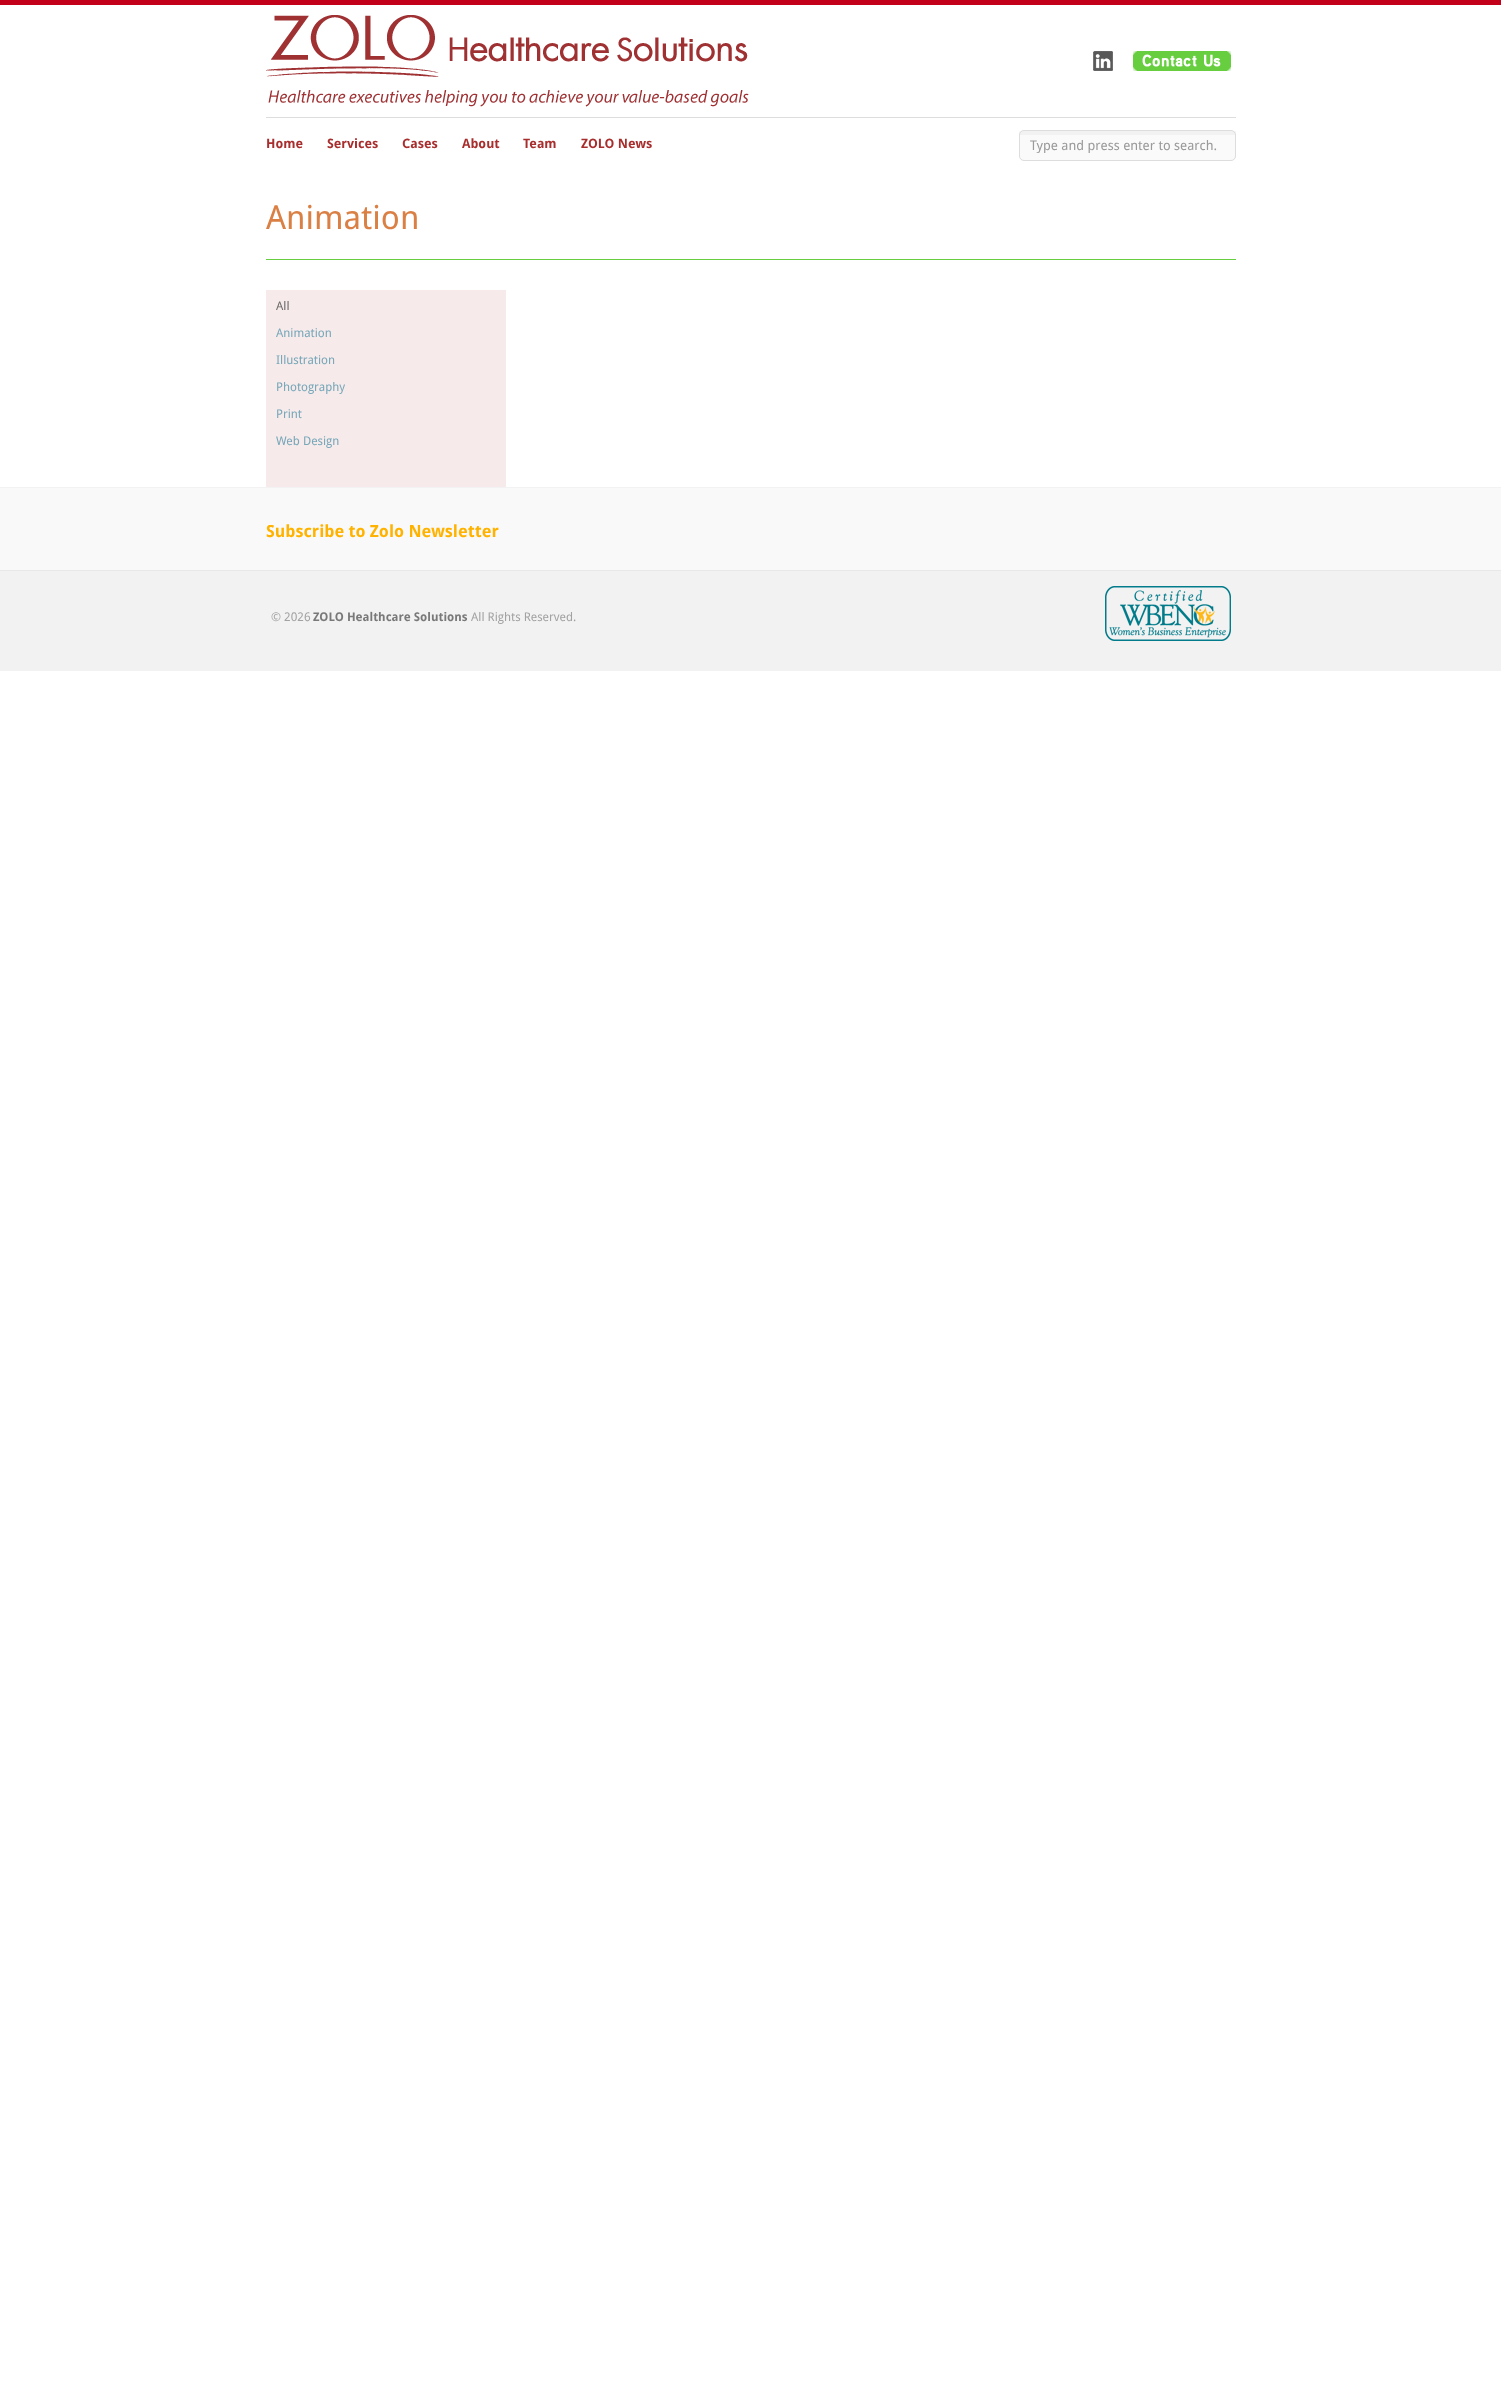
<svg xmlns="http://www.w3.org/2000/svg" width="1501" height="2407" viewBox="0 0 1501 2407">
  <defs>
    <clipPath id="clip1"><rect x="1030" y="138" width="195" height="15"/></clipPath>
  </defs>
  <rect width="100%" height="100%" fill="#ffffff"/>
  <rect x="0" y="0" width="1501" height="5" fill="#c2001a"/>
  <image x="266" y="15" width="483" height="92" href="img1.png"/>
  <image x="1093" y="51" width="20" height="20" href="img2.png"/>
  <image x="1133" y="51" width="98" height="20" href="img3.png"/>
  <rect x="266" y="117" width="970" height="1" fill="#dddddd"/>
  <text x="266" y="148" font-family="Droid Sans" font-size="13" font-weight="bold" fill="#a82e2e">Home</text>
  <text x="327" y="148" font-family="Droid Sans" font-size="13" font-weight="bold" fill="#a82e2e">Services</text>
  <text x="402" y="148" font-family="Droid Sans" font-size="13" font-weight="bold" fill="#a82e2e">Cases</text>
  <text x="462" y="148" font-family="Droid Sans" font-size="13" font-weight="bold" fill="#a82e2e">About</text>
  <text x="523" y="148" font-family="Droid Sans" font-size="13" font-weight="bold" fill="#a82e2e">Team</text>
  <text x="581" y="148" font-family="Droid Sans" font-size="13" font-weight="bold" fill="#a82e2e">ZOLO News</text>
  <rect x="1019" y="130" width="217" height="31" rx="5" fill="#fafafa"/>
  <rect x="1019" y="131" width="217" height="4" fill="#000000" fill-opacity="0.03"/>
  <rect x="1019.5" y="130.5" width="216" height="30" rx="4.5" fill="none" stroke="#dddddd"/>
  <g clip-path="url(#clip1)">
    <text x="1030" y="150" font-family="Droid Sans" font-size="13.3" fill="#9a9a9a">Type and press enter to search.</text>
  </g>
  <rect x="266" y="259" width="970" height="1" fill="#67ce3f"/>
  <text x="266" y="229" font-family="Droid Sans" font-size="33" fill="#da8044">Animation</text>
  <rect x="266" y="290" width="240" height="197" fill="#f6eaea"/>
  <text x="276" y="310" font-family="Droid Sans" font-size="12" fill="#696969">All</text>
  <text x="276" y="337" font-family="Droid Sans" font-size="12" fill="#77a7b9">Animation</text>
  <text x="276" y="364" font-family="Droid Sans" font-size="12" fill="#77a7b9">Illustration</text>
  <text x="276" y="391" font-family="Droid Sans" font-size="12" fill="#77a7b9">Photography</text>
  <text x="276" y="418" font-family="Droid Sans" font-size="12" fill="#77a7b9">Print</text>
  <text x="276" y="445" font-family="Droid Sans" font-size="12" fill="#77a7b9">Web Design</text>
  <rect x="0" y="488" width="1501" height="82" fill="#faf9f9"/>
  <rect x="0" y="487" width="1501" height="1" fill="#f3f2f2"/>
  <text x="266" y="537" font-family="Droid Sans" font-size="16.75" font-weight="bold" fill="#ffb300">Subscribe to Zolo Newsletter</text>
  <rect x="0" y="571" width="1501" height="100" fill="#f3f2f2"/>
  <rect x="0" y="570" width="1501" height="1" fill="#e9e8e8"/>
  <text x="271" y="621" font-family="Droid Sans" font-size="12" fill="#a2a2a2">© 2026</text>
  <text x="313" y="621" font-family="Droid Sans" font-size="12" font-weight="bold" fill="#797979">ZOLO Healthcare Solutions</text>
  <text x="471" y="621" font-family="Droid Sans" font-size="12" fill="#a2a2a2">All Rights Reserved.</text>
  <image x="1105" y="586" width="126" height="55" href="img4.png"/>
</svg>
